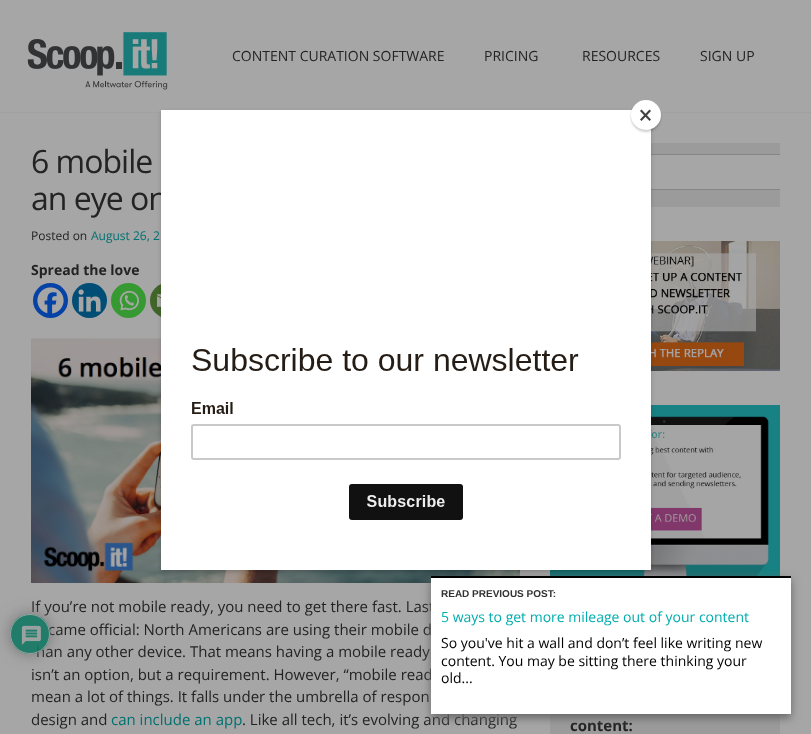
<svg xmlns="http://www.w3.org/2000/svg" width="811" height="734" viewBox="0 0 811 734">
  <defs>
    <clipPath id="clip1"><rect x="550" y="143" width="230" height="64"/></clipPath>
    <filter id="blur1" x="-50%" y="-200%" width="200%" height="500%"><feGaussianBlur stdDeviation="2"/></filter>
    <filter id="blur2" x="-50%" y="-200%" width="200%" height="500%"><feGaussianBlur stdDeviation="1"/></filter>
    <clipPath id="clip2"><path d="M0 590H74V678H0ZM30 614C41 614 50 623 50 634C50 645 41 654 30 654C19 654 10 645 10 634C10 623 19 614 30 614Z" clip-rule="evenodd"/></clipPath>
    <filter id="blur3" x="-50%" y="-200%" width="200%" height="500%"><feGaussianBlur stdDeviation="7.5"/></filter>
    <filter id="blur4" x="-50%" y="-200%" width="200%" height="500%"><feGaussianBlur stdDeviation="5"/></filter>
  </defs>
  <rect width="100%" height="100%" fill="#a6a6a6"/>
  <rect x="0" y="112" width="811" height="1" fill="#a1a1a1"/>
  <image x="27" y="32" width="141" height="58" href="img1.png"/>
  <text x="232" y="61" font-family="Open Sans" font-size="14" fill="#232323">CONTENT CURATION SOFTWARE</text>
  <text x="484" y="61" font-family="Open Sans" font-size="14" fill="#232323">PRICING</text>
  <text x="582" y="61" font-family="Open Sans" font-size="14" fill="#232323">RESOURCES</text>
  <text x="700" y="61" font-family="Open Sans" font-size="14" fill="#232323">SIGN UP</text>
  <text x="31" y="173" font-family="Open Sans" font-size="32" letter-spacing="-1" fill="#232323">6 mobile</text>
  <text x="31" y="210" font-family="Open Sans" font-size="32" letter-spacing="-1" fill="#232323">an eye on</text>
  <text x="31" y="240" font-family="Open Sans" font-size="12" fill="#232323">Posted on</text>
  <text x="91" y="240" font-family="Open Sans" font-size="12" fill="#007071">August 26, 2</text>
  <text x="31" y="275" font-family="Open Sans" font-size="14" font-weight="bold" fill="#232323">Spread the love</text>
  <circle cx="50.5" cy="300.5" r="17.5" fill="#0542a5"/>
  <image x="37" y="287" width="27" height="27" href="img2.png"/>
  <circle cx="89.5" cy="300.5" r="17.5" fill="#004d76"/>
  <image x="78" y="289" width="23" height="23" href="img3.png"/>
  <circle cx="128.5" cy="300.5" r="17.5" fill="#379931"/>
  <image x="119" y="290" width="20" height="21" href="img4.png"/>
  <circle cx="167.5" cy="300.5" r="17.5" fill="#416429"/>
  <image x="157" y="294" width="4" height="13" href="img5.png"/>
  <image x="31" y="338" width="489" height="245" href="img6.png"/>
  <text x="31" y="612" font-family="Open Sans" font-size="15" fill="#232323">If you’re not mobile ready, you need to get there fast. Last</text>
  <text x="48" y="635" font-family="Open Sans" font-size="15" fill="#232323">came official: North Americans are using their mobile d</text>
  <text x="36" y="657" font-family="Open Sans" font-size="15" fill="#232323">han any other device. That means having a mobile ready</text>
  <text x="31" y="680" font-family="Open Sans" font-size="15" fill="#232323">isn’t an option, but a requirement. However, “mobile read</text>
  <text x="31" y="702" font-family="Open Sans" font-size="15" fill="#232323">mean a lot of things. It falls under the umbrella of respon</text>
  <text x="31" y="725" font-family="Open Sans" font-size="15" fill="#232323">design and</text>
  <text x="111" y="725" font-family="Open Sans" font-size="15" fill="#007071">can include an app</text>
  <text x="242" y="725" font-family="Open Sans" font-size="15" fill="#232323">. Like all tech, it’s evolving and changing</text>
  <rect x="651" y="143" width="129" height="64" fill="#9b9b9b"/>
  <rect x="651" y="155" width="129" height="34" fill="#a6a6a6"/>
  <g clip-path="url(#clip1)">
    <rect x="562.5" y="154.5" width="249" height="35" fill="none" stroke="#858585"/>
  </g>
  <image x="651" y="241" width="129" height="130" href="img7.png"/>
  <image x="550" y="405" width="230" height="171" href="img8.png"/>
  <rect x="550" y="714" width="230" height="20" fill="#9b9b9b"/>
  <text x="570" y="731" font-family="Open Sans" font-size="15" font-weight="bold" fill="#232323">content:</text>
  <rect x="161" y="112" width="490" height="460" fill="#000000" fill-opacity="0.2" filter="url(#blur1)"/>
  <image x="161" y="110" width="490" height="460" href="img9.png"/>
  <rect x="631" y="102" width="30" height="30" rx="15" fill="#000000" fill-opacity="0.2" filter="url(#blur2)"/>
  <circle cx="646" cy="115" r="15" fill="#ffffff"/>
  <path d="M649.5 109.5L651 111L641.5 121L640 119.5Z" fill="#414141"/>
  <path d="M640 111L641.5 109.5L651 119.5L649.5 121Z" fill="#414141"/>
  <g clip-path="url(#clip2)">
    <rect x="10" y="614" width="40" height="40" rx="20" fill="#6f6f6f" fill-opacity="0.9" filter="url(#blur3)"/>
  </g>
  <circle cx="30" cy="634" r="20" fill="#137864" fill-opacity="0.9"/>
  <circle cx="30" cy="634" r="19.5" fill="none" stroke="#a6a6a6" stroke-opacity="0.9"/>
  <image x="21" y="625" width="20" height="20" href="img10.png"/>
  <rect x="431" y="580" width="360" height="138" fill="#666666" filter="url(#blur4)"/>
  <rect x="431" y="578" width="360" height="136" fill="#ffffff"/>
  <rect x="431" y="576" width="360" height="2" fill="#000000"/>
  <text x="441" y="597" font-family="Liberation Sans" font-size="10" font-weight="bold" fill="#333333">READ PREVIOUS POST:</text>
  <text x="441" y="622" font-family="Open Sans" font-size="14" fill="#00adae">5 ways to get more mileage out of your content</text>
  <text x="441" y="648" font-family="Open Sans" font-size="14" fill="#000000">So you've hit a wall and don’t feel like writing new</text>
  <text x="441" y="666" font-family="Open Sans" font-size="14" fill="#000000">content. You may be sitting there thinking your</text>
  <text x="441" y="683" font-family="Open Sans" font-size="14" fill="#000000">old...</text>
</svg>
